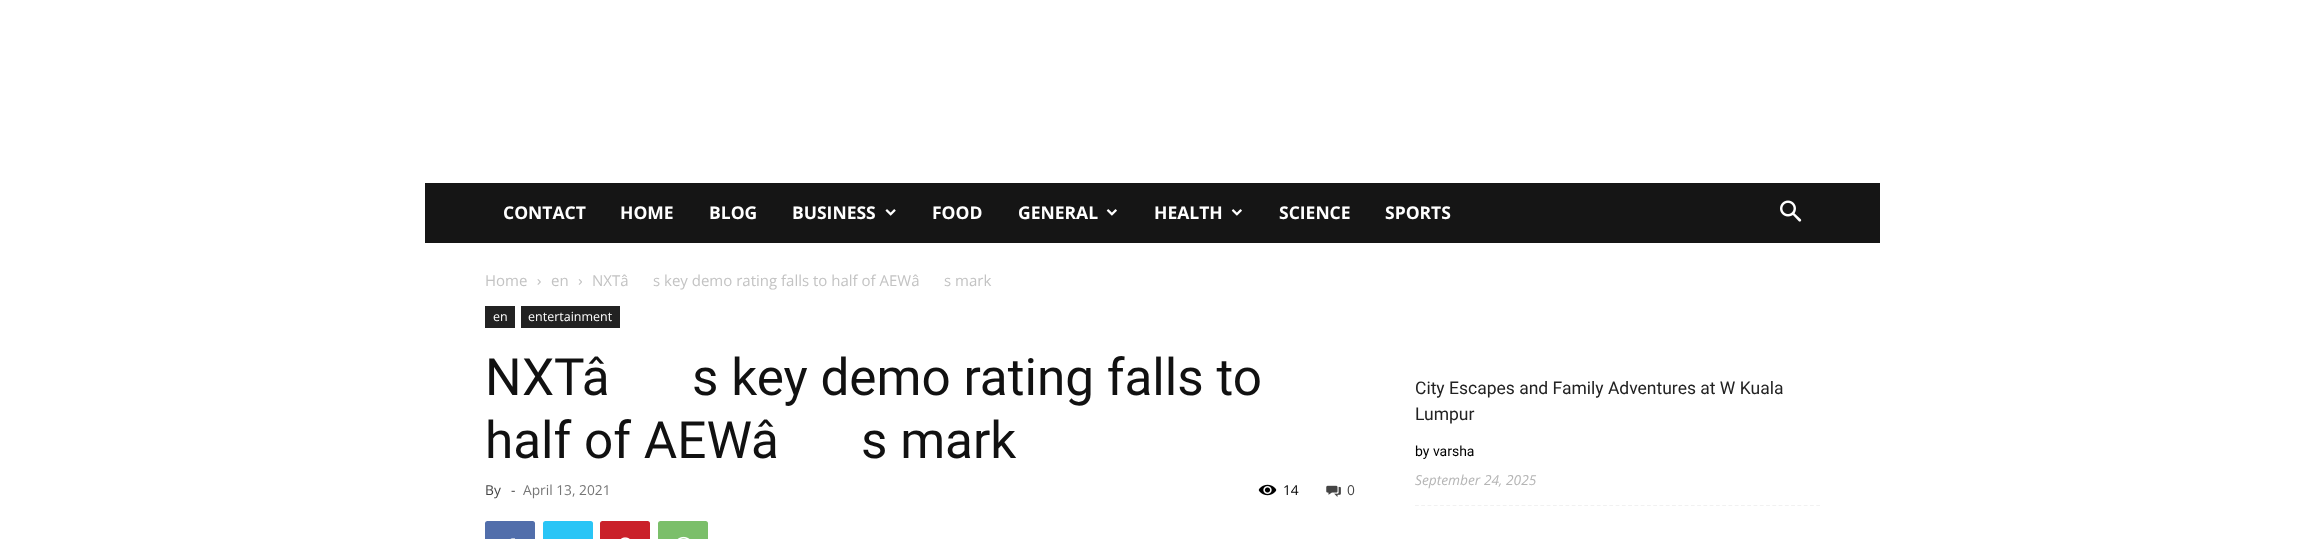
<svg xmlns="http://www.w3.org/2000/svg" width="2304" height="539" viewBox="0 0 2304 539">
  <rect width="100%" height="100%" fill="#ffffff"/>
  <rect x="425" y="183" width="1455" height="60" fill="#151515"/>
  <text x="503" y="219" font-family="Open Sans" font-size="17.5" font-weight="bold" fill="#ffffff">CONTACT</text>
  <text x="620" y="219" font-family="Open Sans" font-size="17.5" font-weight="bold" fill="#ffffff">HOME</text>
  <text x="709" y="219" font-family="Open Sans" font-size="17.5" font-weight="bold" fill="#ffffff">BLOG</text>
  <text x="792" y="219" font-family="Open Sans" font-size="17.5" font-weight="bold" fill="#ffffff">BUSINESS</text>
  <image x="885" y="209" width="11" height="7" href="img1.png"/>
  <text x="932" y="219" font-family="Open Sans" font-size="17.5" font-weight="bold" fill="#ffffff">FOOD</text>
  <text x="1018" y="219" font-family="Open Sans" font-size="17.5" font-weight="bold" fill="#ffffff">GENERAL</text>
  <image x="1106" y="209" width="11" height="7" href="img2.png"/>
  <text x="1154" y="219" font-family="Open Sans" font-size="17.5" font-weight="bold" fill="#ffffff">HEALTH</text>
  <image x="1231" y="209" width="11" height="7" href="img2.png"/>
  <text x="1279" y="219" font-family="Open Sans" font-size="17.5" font-weight="bold" fill="#ffffff">SCIENCE</text>
  <text x="1385" y="219" font-family="Open Sans" font-size="17.5" font-weight="bold" fill="#ffffff">SPORTS</text>
  <image x="1780" y="200" width="22" height="22" href="img3.png"/>
  <text x="485" y="286" font-family="Open Sans" font-size="15" fill="#c3c3c3">Home</text>
  <image x="537" y="279" width="4" height="6" href="img4.png"/>
  <text x="551" y="286" font-family="Open Sans" font-size="15" fill="#c3c3c3">en</text>
  <image x="578" y="279" width="4" height="6" href="img5.png"/>
  <text x="592" y="286" font-family="Open Sans" font-size="15" fill="#c3c3c3">NXTâ</text>
  <text x="653" y="286" font-family="Open Sans" font-size="15" fill="#c3c3c3">s key demo rating falls to half of AEWâ</text>
  <text x="944" y="286" font-family="Open Sans" font-size="15" fill="#c3c3c3">s mark</text>
  <rect x="485" y="306" width="30" height="22" fill="#222222"/>
  <text x="493" y="321" font-family="Open Sans" font-size="12.5" fill="#ffffff">en</text>
  <rect x="521" y="306" width="99" height="22" fill="#222222"/>
  <text x="528" y="321" font-family="Open Sans" font-size="12.5" fill="#ffffff">entertainment</text>
  <text x="485" y="395" font-family="Roboto" font-size="51.25" fill="#111111">NXTâ</text>
  <text x="692" y="395" font-family="Roboto" font-size="51.25" fill="#111111">s key demo rating falls to</text>
  <text x="485" y="458" font-family="Roboto" font-size="51.25" fill="#111111">half of AEWâ</text>
  <text x="861" y="458" font-family="Roboto" font-size="51.25" fill="#111111">s mark</text>
  <text x="485" y="495" font-family="Open Sans" font-size="13.75" fill="#444444">By</text>
  <text x="511" y="495" font-family="Open Sans" font-size="13.75" fill="#444444">-</text>
  <text x="523" y="495" font-family="Open Sans" font-size="13.75" fill="#767676">April 13, 2021</text>
  <image x="1258" y="484" width="19" height="12" href="img6.png"/>
  <text x="1283" y="495" font-family="Open Sans" font-size="13.75" fill="#000000">14</text>
  <image x="1326" y="485" width="15" height="12" href="img7.png"/>
  <text x="1347" y="495" font-family="Open Sans" font-size="13.75" fill="#444444">0</text>
  <rect x="485" y="521" width="50" height="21" rx="2.5" fill="#516eab"/>
  <image x="510" y="538" width="5" height="1" href="img8.png"/>
  <rect x="543" y="521" width="50" height="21" rx="2.5" fill="#29c5f6"/>
  <rect x="600" y="521" width="50" height="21" rx="2.5" fill="#ca212a"/>
  <image x="621" y="537" width="9" height="2" href="img9.png"/>
  <rect x="658" y="521" width="50" height="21" rx="2.5" fill="#7bbf6a"/>
  <image x="677" y="536" width="13" height="3" href="img10.png"/>
  <path d="M1415 505.5H1820" fill="none" stroke="#f1f1f1" stroke-width="1.2" stroke-dasharray="3.75 2.52"/>
  <text x="1415" y="394" font-family="Roboto" font-size="17.5" fill="#222222">City Escapes and Family Adventures at W Kuala</text>
  <text x="1415" y="420" font-family="Roboto" font-size="17.5" fill="#222222">Lumpur</text>
  <text x="1415" y="456" font-family="Roboto" font-size="14" fill="#000000">by varsha</text>
  <text x="1415" y="485" font-family="Open Sans" font-size="13.75" font-style="italic" fill="#b5b5b5">September 24, 2025</text>
</svg>
